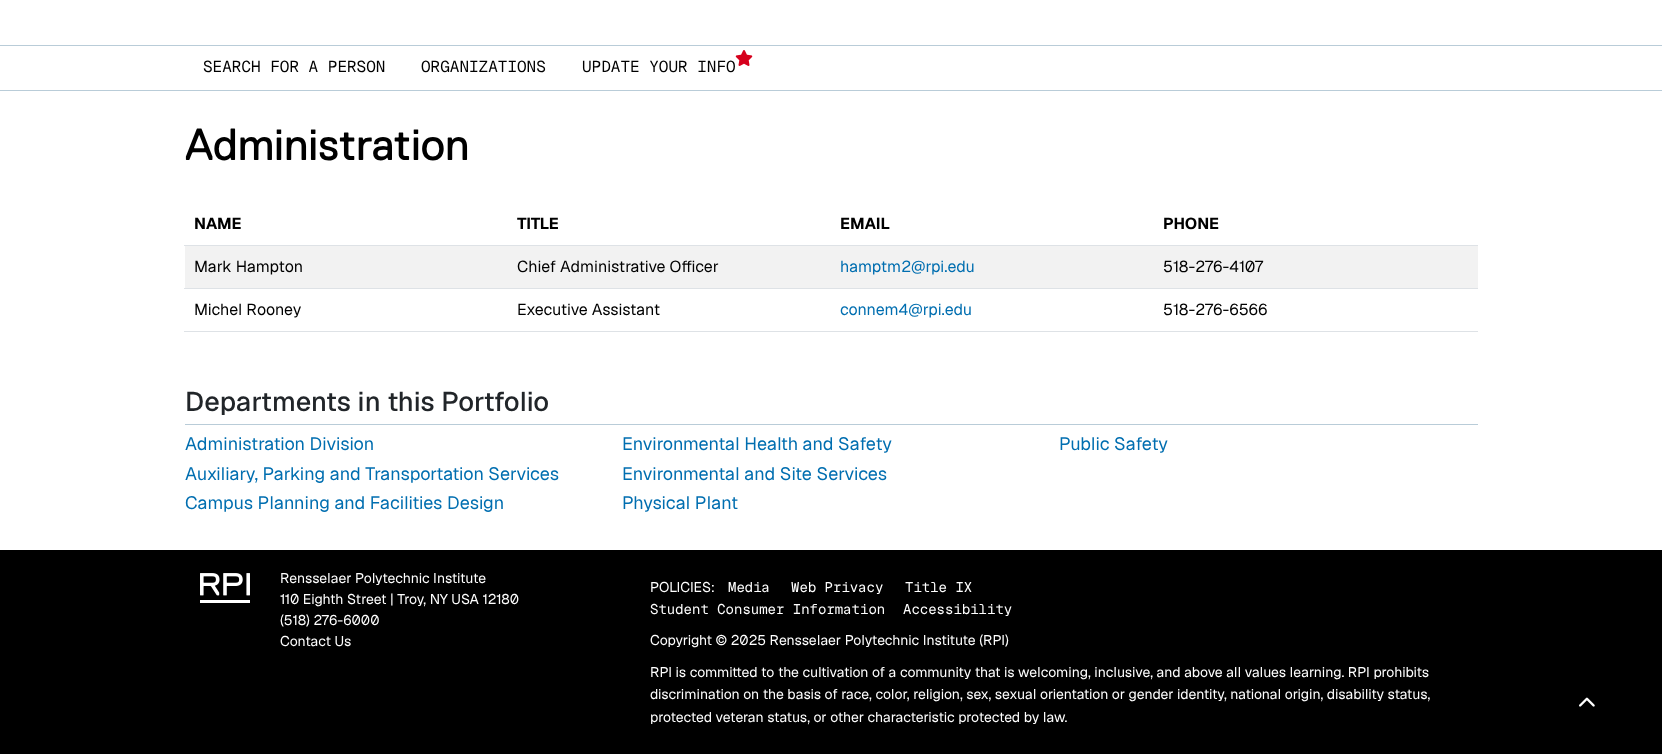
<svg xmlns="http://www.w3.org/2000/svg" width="1662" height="754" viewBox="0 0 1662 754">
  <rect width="100%" height="100%" fill="#ffffff"/>
  <rect x="0" y="45" width="1662" height="1" fill="#b9ccd8"/>
  <rect x="0" y="90" width="1662" height="1" fill="#b9ccd8"/>
  <text x="203" y="72" font-family="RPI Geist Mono" font-size="16" fill="#000000">SEARCH FOR A PERSON</text>
  <text x="421" y="72" font-family="RPI Geist Mono" font-size="16" fill="#000000">ORGANIZATIONS</text>
  <text x="582" y="72" font-family="RPI Geist Mono" font-size="16" fill="#000000">UPDATE YOUR INFO</text>
  <image x="735" y="50" width="18" height="16" href="img1.png"/>
  <text x="185" y="160" font-family="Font" font-size="45" fill="#000000">Administration</text>
  <text x="194" y="229" font-family="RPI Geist" font-size="16" font-weight="bold" fill="#000000">NAME</text>
  <text x="517" y="229" font-family="RPI Geist" font-size="16" font-weight="bold" fill="#000000">TITLE</text>
  <text x="840" y="229" font-family="RPI Geist" font-size="16" font-weight="bold" fill="#000000">EMAIL</text>
  <rect x="184" y="245" width="1294" height="1" fill="#dee2e6"/>
  <text x="1163" y="229" font-family="RPI Geist" font-size="16" font-weight="bold" fill="#000000">PHONE</text>
  <rect x="185" y="246" width="1293" height="42" fill="#f2f2f2"/>
  <text x="194" y="272" font-family="RPI Geist" font-size="16" fill="#000000">Mark Hampton</text>
  <text x="517" y="272" font-family="RPI Geist" font-size="16" fill="#000000">Chief Administrative Officer</text>
  <text x="840" y="272" font-family="RPI Geist" font-size="16" fill="#006eb0">hamptm2@rpi.edu</text>
  <rect x="184" y="288" width="1294" height="1" fill="#dee2e6"/>
  <text x="1163" y="272" font-family="RPI Geist" font-size="16" fill="#000000">518-276-4107</text>
  <text x="194" y="315" font-family="RPI Geist" font-size="16" fill="#000000">Michel Rooney</text>
  <text x="517" y="315" font-family="RPI Geist" font-size="16" fill="#000000">Executive Assistant</text>
  <text x="840" y="315" font-family="RPI Geist" font-size="16" fill="#006eb0">connem4@rpi.edu</text>
  <rect x="184" y="331" width="1294" height="1" fill="#dee2e6"/>
  <text x="1163" y="315" font-family="RPI Geist" font-size="16" fill="#000000">518-276-6566</text>
  <rect x="185" y="424" width="1293" height="1" fill="#b9ccd8"/>
  <text x="185" y="411" font-family="RPI Geist" font-size="27" font-weight="500" fill="#212529">Departments in this Portfolio</text>
  <text x="185" y="450" font-family="RPI Geist" font-size="18" fill="#006eb0">Administration Division</text>
  <text x="622" y="450" font-family="RPI Geist" font-size="18" fill="#006eb0">Environmental Health and Safety</text>
  <text x="1059" y="450" font-family="RPI Geist" font-size="18" fill="#006eb0">Public Safety</text>
  <text x="185" y="480" font-family="RPI Geist" font-size="18" fill="#006eb0">Auxiliary, Parking and Transportation Services</text>
  <text x="622" y="480" font-family="RPI Geist" font-size="18" fill="#006eb0">Environmental and Site Services</text>
  <text x="185" y="509" font-family="RPI Geist" font-size="18" fill="#006eb0">Campus Planning and Facilities Design</text>
  <text x="622" y="509" font-family="RPI Geist" font-size="18" fill="#006eb0">Physical Plant</text>
  <rect x="0" y="550" width="1662" height="204" fill="#000000"/>
  <image x="200" y="573" width="50" height="30" href="img2.png"/>
  <text x="280" y="583" font-family="RPI Geist" font-size="14" fill="#ffffff">Rensselaer Polytechnic Institute</text>
  <text x="280" y="604" font-family="RPI Geist" font-size="14" fill="#ffffff">110 Eighth Street | Troy, NY USA 12180</text>
  <text x="280" y="625" font-family="RPI Geist" font-size="14" fill="#ffffff">(518) 276-6000</text>
  <text x="280" y="646" font-family="RPI Geist" font-size="14" fill="#ffffff">Contact Us</text>
  <text x="650" y="592" font-family="RPI Geist" font-size="14" fill="#ffffff">POLICIES:</text>
  <text x="728" y="592" font-family="RPI Geist Mono" font-size="14" fill="#ffffff">Media</text>
  <text x="791" y="592" font-family="RPI Geist Mono" font-size="14" fill="#ffffff">Web Privacy</text>
  <text x="905" y="592" font-family="RPI Geist Mono" font-size="14" fill="#ffffff">Title IX</text>
  <text x="650" y="614" font-family="RPI Geist Mono" font-size="14" fill="#ffffff">Student Consumer Information</text>
  <text x="903" y="614" font-family="RPI Geist Mono" font-size="14" fill="#ffffff">Accessibility</text>
  <text x="650" y="645" font-family="RPI Geist" font-size="14" fill="#ffffff">Copyright © 2025 Rensselaer Polytechnic Institute (RPI)</text>
  <text x="650" y="677" font-family="RPI Geist" font-size="14" fill="#ffffff">RPI is committed to the cultivation of a community that is welcoming, inclusive, and above all values learning. RPI prohibits</text>
  <text x="650" y="699" font-family="RPI Geist" font-size="14" fill="#ffffff">discrimination on the basis of race, color, religion, sex, sexual orientation or gender identity, national origin, disability status,</text>
  <text x="650" y="722" font-family="RPI Geist" font-size="14" fill="#ffffff">protected veteran status, or other characteristic protected by law.</text>
  <image x="1579" y="697" width="16" height="10" href="img3.png"/>
</svg>
